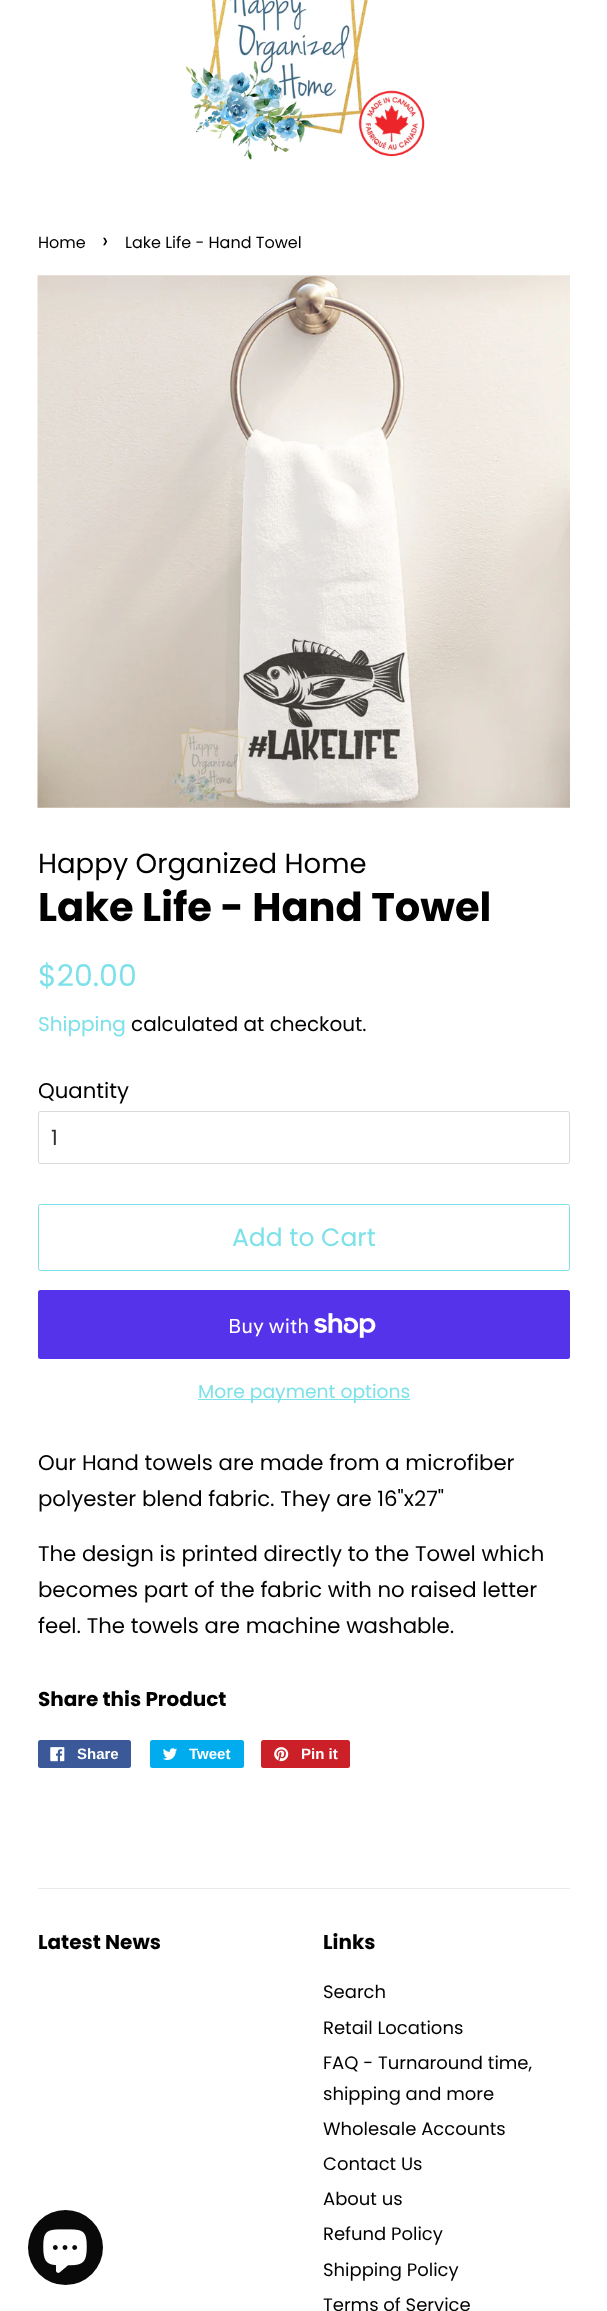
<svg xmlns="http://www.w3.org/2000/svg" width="607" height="2311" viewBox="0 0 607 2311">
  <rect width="100%" height="100%" fill="#ffffff"/>
  <image x="185" y="0" width="240" height="160" href="img1.png"/>
  <text x="38" y="248" font-family="Poppins" font-size="16" fill="#000000">Home</text>
  <text x="102" y="248" font-family="Poppins" font-size="22" fill="#000000">›</text>
  <text x="125" y="248" font-family="Poppins" font-size="16" fill="#000000">Lake Life - Hand Towel</text>
  <image x="37" y="275" width="533" height="533" href="img2.png"/>
  <text x="38" y="873" font-family="Poppins" font-size="27.5" fill="#000000">Happy Organized Home</text>
  <text x="38" y="921" font-family="Poppins" font-size="40" font-weight="bold" fill="#000000">Lake Life - Hand Towel</text>
  <text x="38" y="986" font-family="Poppins" font-size="30" fill="#7de1e9">$20.00</text>
  <text x="38" y="1031" font-family="Poppins" font-size="20" fill="#7de1e9">Shipping</text>
  <text x="131" y="1031" font-family="Poppins" font-size="20" fill="#000000">calculated at checkout.</text>
  <text x="38" y="1098" font-family="Poppins" font-size="21.25" fill="#000000">Quantity</text>
  <rect x="38.5" y="1111.5" width="531" height="52" rx="2" fill="none" stroke="#d9d9d9"/>
  <text x="51" y="1145" font-family="Poppins" font-size="21.25" fill="#333333">1</text>
  <rect x="38.5" y="1204.5" width="531" height="66" rx="2" fill="none" stroke="#7de1e9"/>
  <text x="232" y="1246" font-family="Poppins" font-size="25" fill="#7de1e9">Add to Cart</text>
  <rect x="38" y="1290" width="532" height="69" rx="2.5" fill="#5433eb"/>
  <text x="228" y="1333" font-family="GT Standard" font-size="20" fill="#ffffff">Buy with</text>
  <image x="314" y="1313" width="62" height="25" href="img3.png"/>
  <rect x="198" y="1399" width="212" height="1" fill="#7de1e9"/>
  <text x="198" y="1398" font-family="Poppins" font-size="18.75" fill="#7de1e9">More payment options</text>
  <text x="38" y="1470" font-family="Poppins" font-size="21.25" fill="#000000">Our Hand towels are made from a microfiber</text>
  <text x="38" y="1506" font-family="Poppins" font-size="21.25" fill="#000000">polyester blend fabric. They are 16"x27"</text>
  <text x="38" y="1561" font-family="Poppins" font-size="21.25" fill="#000000">The design is printed directly to the Towel which</text>
  <text x="38" y="1597" font-family="Poppins" font-size="21.25" fill="#000000">becomes part of the fabric with no raised letter</text>
  <text x="38" y="1633" font-family="Poppins" font-size="21.25" fill="#000000">feel. The towels are machine washable.</text>
  <text x="38" y="1706" font-family="Poppins" font-size="20" font-weight="bold" fill="#000000">Share this Product</text>
  <rect x="38" y="1740" width="93" height="28" rx="2.5" fill="#3b5998"/>
  <image x="50" y="1747" width="15" height="15" href="img4.png"/>
  <text x="77" y="1759" font-family="Liberation Sans" font-size="15" font-weight="bold" fill="#ffffff">Share</text>
  <rect x="150" y="1740" width="94" height="28" rx="2.5" fill="#00aced"/>
  <image x="162" y="1748" width="15" height="12" href="img5.png"/>
  <text x="189" y="1759" font-family="Liberation Sans" font-size="15" font-weight="bold" fill="#ffffff">Tweet</text>
  <rect x="261" y="1740" width="89" height="28" rx="2.5" fill="#cb2027"/>
  <image x="274" y="1747" width="15" height="15" href="img6.png"/>
  <text x="301" y="1759" font-family="Liberation Sans" font-size="15" font-weight="bold" fill="#ffffff">Pin it</text>
  <rect x="38" y="1888" width="532" height="1" fill="#ebebeb"/>
  <text x="38" y="1949" font-family="Poppins" font-size="20" font-weight="bold" fill="#000000">Latest News</text>
  <text x="323" y="1949" font-family="Poppins" font-size="20" font-weight="bold" fill="#000000">Links</text>
  <text x="323" y="1998" font-family="Poppins" font-size="18" fill="#000000">Search</text>
  <text x="323" y="2034" font-family="Poppins" font-size="18" fill="#000000">Retail Locations</text>
  <text x="323" y="2069" font-family="Poppins" font-size="18" fill="#000000">FAQ - Turnaround time,</text>
  <text x="323" y="2100" font-family="Poppins" font-size="18" fill="#000000">shipping and more</text>
  <text x="323" y="2135" font-family="Poppins" font-size="18" fill="#000000">Wholesale Accounts</text>
  <text x="323" y="2170" font-family="Poppins" font-size="18" fill="#000000">Contact Us</text>
  <text x="323" y="2205" font-family="Poppins" font-size="18" fill="#000000">About us</text>
  <text x="323" y="2240" font-family="Poppins" font-size="18" fill="#000000">Refund Policy</text>
  <text x="323" y="2276" font-family="Poppins" font-size="18" fill="#000000">Shipping Policy</text>
  <text x="323" y="2311" font-family="Poppins" font-size="18" fill="#000000">Terms of Service</text>
  <circle cx="65.5" cy="2247.5" r="37.5" fill="#090909"/>
  <image x="43" y="2229" width="44" height="44" href="img7.png"/>
</svg>
